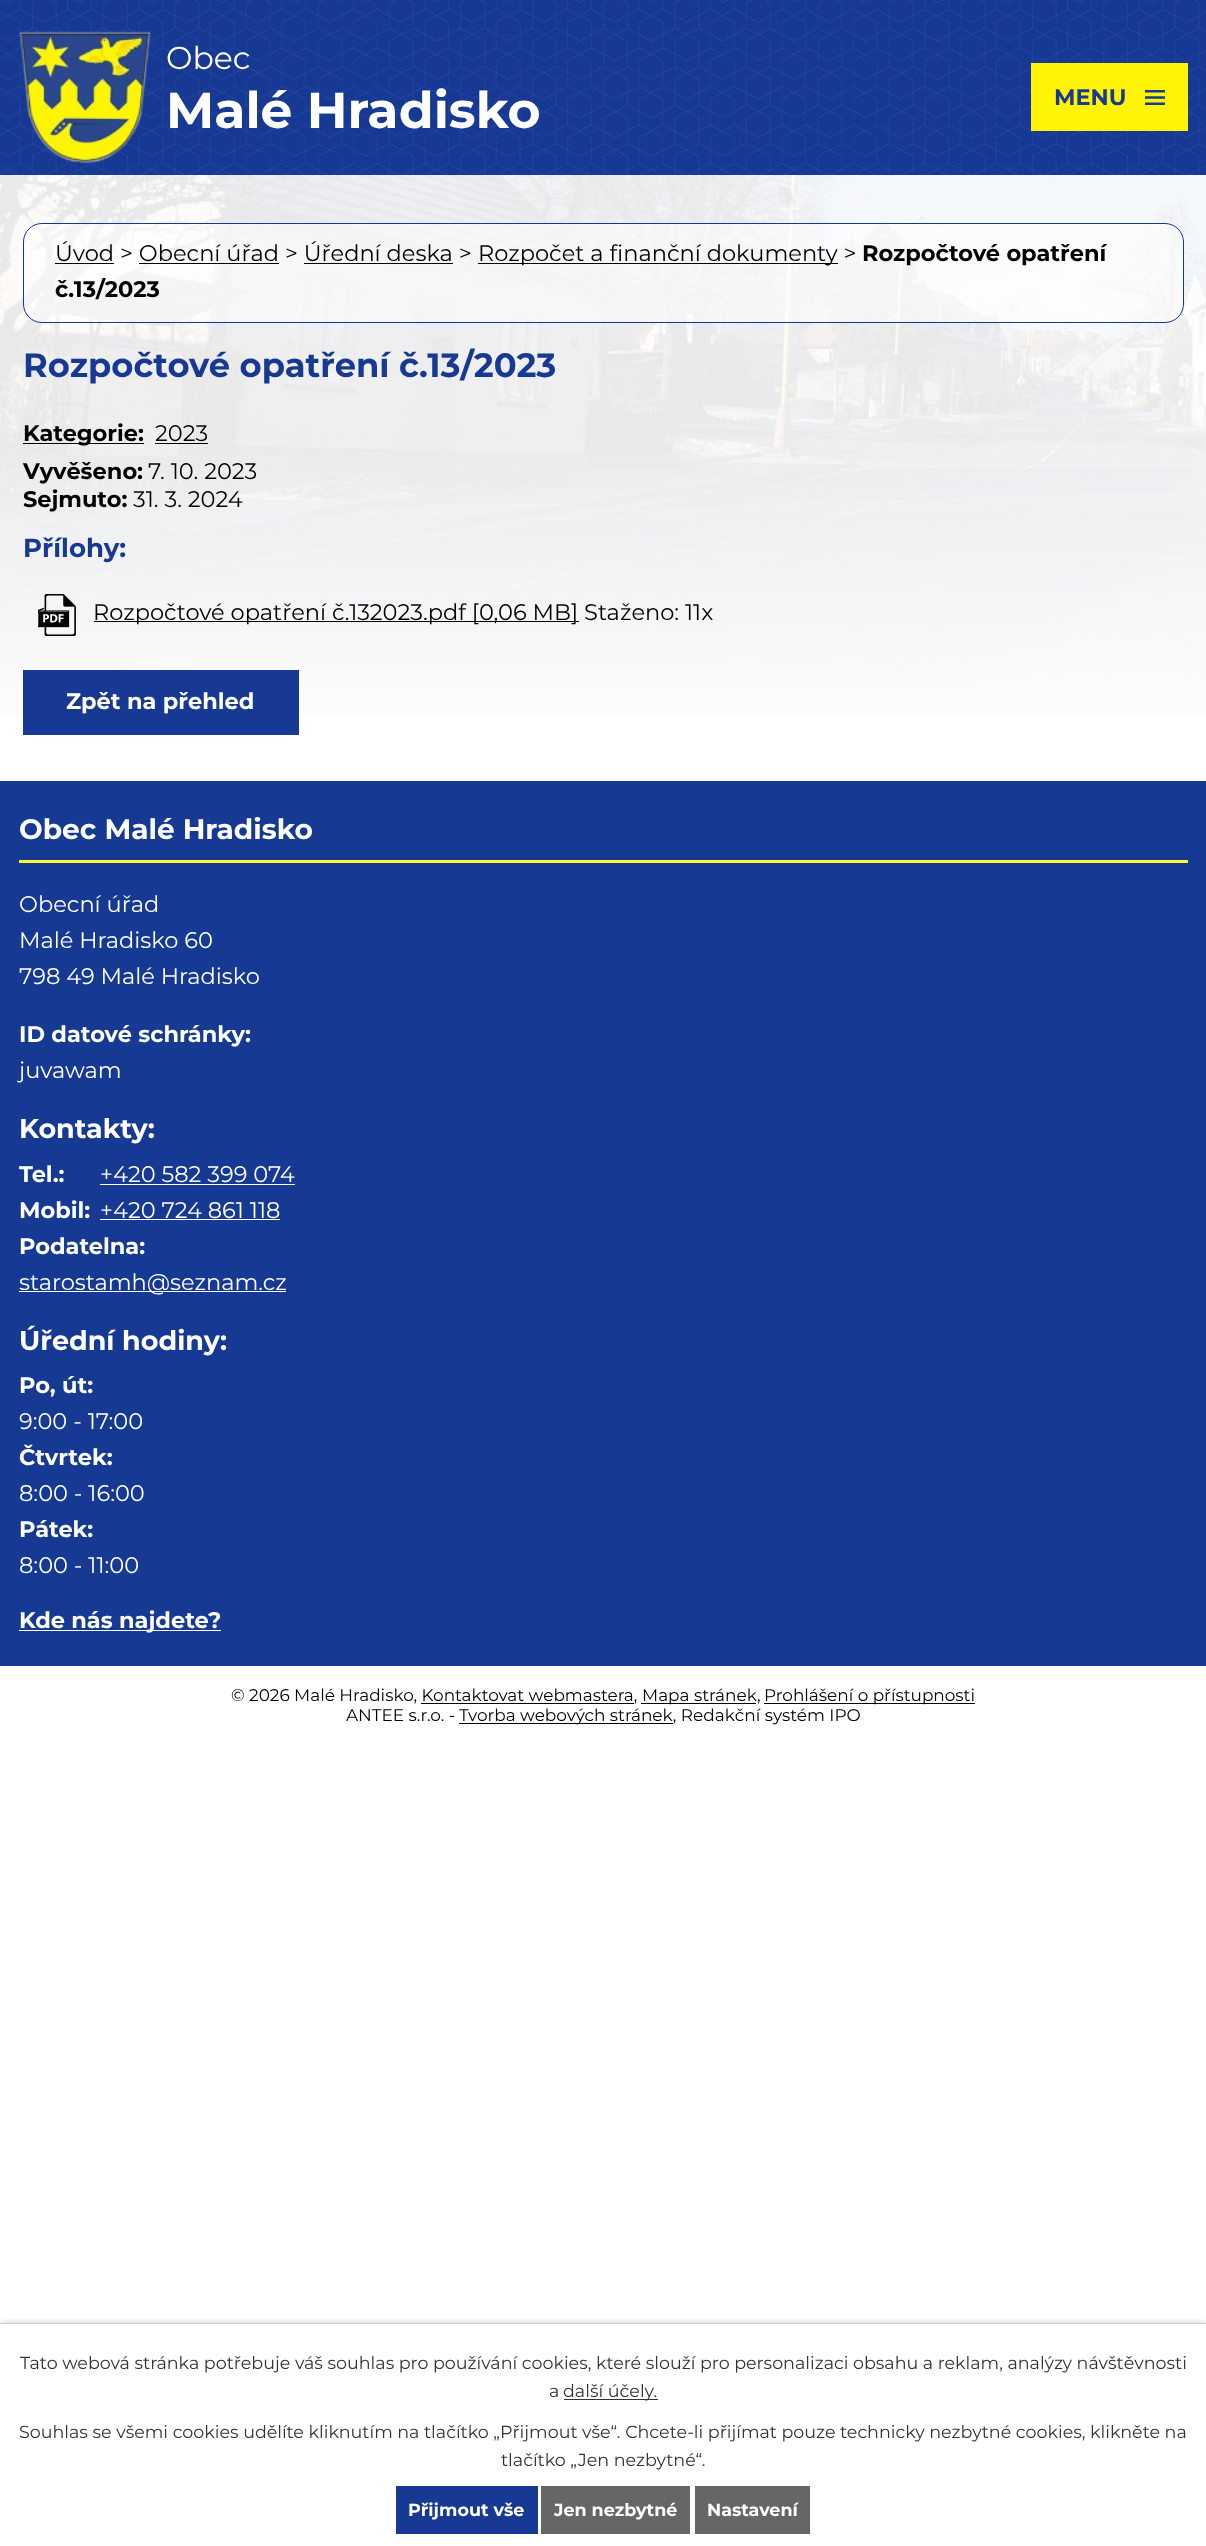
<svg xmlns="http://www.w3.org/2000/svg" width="1206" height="2546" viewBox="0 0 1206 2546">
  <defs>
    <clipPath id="clip1"><rect x="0" y="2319" width="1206" height="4"/></clipPath>
    <filter id="blur1" x="-50%" y="-200%" width="200%" height="500%"><feGaussianBlur stdDeviation="3"/></filter>
  </defs>
  <rect width="100%" height="100%" fill="#ffffff"/>
  <image x="0" y="175" width="1206" height="540" href="img1.png"/>
  <image x="0" y="0" width="1206" height="175" href="img2.png"/>
  <image x="19" y="31" width="132" height="133" href="img3.png"/>
  <text x="166" y="69" font-family="Montserrat" font-size="31.5" fill="#ffffff">Obec</text>
  <text x="166" y="128" font-family="Montserrat" font-size="50.5" font-weight="bold" fill="#ffffff">Malé Hradisko</text>
  <rect x="1031" y="63" width="157" height="68" fill="#fff306"/>
  <text x="1054" y="105" font-family="Montserrat" font-size="22.5" font-weight="bold" fill="#173994">MENU</text>
  <image x="1145" y="90" width="20" height="15" href="img4.png"/>
  <rect x="23.5" y="223.5" width="1160" height="99" rx="18.5" fill="#ffffff" fill-opacity="0.5" stroke="#143892"/>
  <text x="55" y="261" font-family="Montserrat" font-size="22.5" fill="#000000">Úvod &gt; Obecní úřad &gt; Úřední deska &gt;</text>
  <rect x="55" y="263" width="59" height="1" fill="#000000"/>
  <rect x="478" y="263" width="360" height="1" fill="#000000"/>
  <text x="478" y="261" font-family="Montserrat" font-size="22.5" fill="#000000">Rozpočet a finanční dokumenty &gt;</text>
  <text x="862" y="261" font-family="Montserrat" font-size="22.5" font-weight="bold" fill="#000000">Rozpočtové opatření</text>
  <rect x="139" y="263" width="140" height="1" fill="#000000"/>
  <rect x="304" y="263" width="149" height="1" fill="#000000"/>
  <text x="55" y="297" font-family="Montserrat" font-size="22.5" font-weight="bold" fill="#000000">č.13/2023</text>
  <text x="23" y="377" font-family="Montserrat" font-size="33.75" font-weight="bold" fill="#173994">Rozpočtové opatření č.13/2023</text>
  <rect x="23" y="443" width="121" height="1" fill="#000000"/>
  <text x="23" y="441" font-family="Montserrat" font-size="22.5" font-weight="bold" fill="#000000">Kategorie:</text>
  <text x="155" y="441" font-family="Montserrat" font-size="22.5" fill="#000000">2023</text>
  <rect x="155" y="443" width="53" height="1" fill="#000000"/>
  <text x="23" y="479" font-family="Montserrat" font-size="22.5" font-weight="bold" fill="#000000">Vyvěšeno:</text>
  <text x="148" y="479" font-family="Montserrat" font-size="22.5" fill="#000000">7. 10. 2023</text>
  <text x="23" y="507" font-family="Montserrat" font-size="22.5" font-weight="bold" fill="#000000">Sejmuto:</text>
  <text x="133" y="507" font-family="Montserrat" font-size="22.5" fill="#000000">31. 3. 2024</text>
  <text x="23" y="557" font-family="Montserrat" font-size="26" font-weight="bold" fill="#173994">Přílohy:</text>
  <image x="38" y="594" width="38" height="42" href="img5.png"/>
  <rect x="94" y="621" width="485" height="1" fill="#000000"/>
  <text x="93" y="620" font-family="Montserrat" font-size="22.5" fill="#000000">Rozpočtové opatření č.132023.pdf [0,06 MB] Staženo: 11x</text>
  <rect x="23" y="670" width="276" height="65" fill="#173994"/>
  <text x="66" y="709" font-family="Montserrat" font-size="22.5" font-weight="bold" fill="#ffffff">Zpět na přehled</text>
  <rect x="0" y="781" width="1206" height="885" fill="#163993"/>
  <rect x="19" y="860" width="1169" height="3" fill="#fef537"/>
  <text x="19" y="839" font-family="Montserrat" font-size="28.1" font-weight="bold" fill="#ffffff">Obec Malé Hradisko</text>
  <text x="19" y="912" font-family="Montserrat" font-size="22.5" fill="#ffffff">Obecní úřad</text>
  <text x="19" y="948" font-family="Montserrat" font-size="22.5" fill="#ffffff">Malé Hradisko 60</text>
  <text x="19" y="984" font-family="Montserrat" font-size="22.5" fill="#ffffff">798 49 Malé Hradisko</text>
  <text x="19" y="1042" font-family="Montserrat" font-size="22.5" font-weight="bold" fill="#ffffff">ID datové schránky:</text>
  <text x="19" y="1078" font-family="Montserrat" font-size="22.5" fill="#ffffff">juvawam</text>
  <text x="19" y="1138" font-family="Montserrat" font-size="27" font-weight="bold" fill="#ffffff">Kontakty:</text>
  <text x="19" y="1182" font-family="Montserrat" font-size="22.5" font-weight="bold" fill="#ffffff">Tel.:</text>
  <text x="100" y="1182" font-family="Montserrat" font-size="22.5" fill="#ffffff">+420 582 399 074</text>
  <rect x="100" y="1184" width="195" height="1" fill="#ffffff"/>
  <text x="19" y="1218" font-family="Montserrat" font-size="22.5" font-weight="bold" fill="#ffffff">Mobil:</text>
  <text x="100" y="1218" font-family="Montserrat" font-size="22.5" fill="#ffffff">+420 724 861 118</text>
  <rect x="100" y="1219" width="180" height="1" fill="#ffffff"/>
  <text x="19" y="1254" font-family="Montserrat" font-size="22.5" font-weight="bold" fill="#ffffff">Podatelna:</text>
  <rect x="19" y="1291" width="267" height="1" fill="#ffffff"/>
  <text x="19" y="1290" font-family="Montserrat" font-size="22.5" fill="#ffffff">starostamh@seznam.cz</text>
  <text x="19" y="1350" font-family="Montserrat" font-size="27" font-weight="bold" fill="#ffffff">Úřední hodiny:</text>
  <text x="19" y="1393" font-family="Montserrat" font-size="22.5" font-weight="bold" fill="#ffffff">Po, út:</text>
  <text x="19" y="1429" font-family="Montserrat" font-size="22.5" fill="#ffffff">9:00 - 17:00</text>
  <text x="19" y="1465" font-family="Montserrat" font-size="22.5" font-weight="bold" fill="#ffffff">Čtvrtek:</text>
  <text x="19" y="1501" font-family="Montserrat" font-size="22.5" fill="#ffffff">8:00 - 16:00</text>
  <text x="19" y="1537" font-family="Montserrat" font-size="22.5" font-weight="bold" fill="#ffffff">Pátek:</text>
  <text x="19" y="1573" font-family="Montserrat" font-size="22.5" fill="#ffffff">8:00 - 11:00</text>
  <rect x="19" y="1630" width="202" height="1" fill="#ffffff"/>
  <text x="19" y="1628" font-family="Montserrat" font-size="22.5" font-weight="bold" fill="#ffffff">Kde nás najdete?</text>
  <text x="231" y="1701" font-family="Montserrat" font-size="16.9" fill="#000000">© 2026 Malé Hradisko, Kontaktovat webmastera,</text>
  <rect x="641" y="1703" width="115" height="1" fill="#000000"/>
  <text x="642" y="1701" font-family="Montserrat" font-size="16.9" fill="#000000">Mapa stránek,</text>
  <rect x="764" y="1703" width="211" height="1" fill="#000000"/>
  <text x="764" y="1701" font-family="Montserrat" font-size="16.9" fill="#000000">Prohlášení o přístupnosti</text>
  <rect x="421" y="1703" width="213" height="1" fill="#000000"/>
  <text x="346" y="1721" font-family="Montserrat" font-size="16.9" fill="#000000">ANTEE s.r.o. -</text>
  <rect x="459" y="1723" width="214" height="1" fill="#000000"/>
  <text x="459" y="1721" font-family="Montserrat" font-size="16.9" fill="#000000">Tvorba webových stránek, Redakční systém IPO</text>
  <g clip-path="url(#clip1)">
    <rect x="0" y="2323" width="1206" height="223" fill="#000000" fill-opacity="0.2" filter="url(#blur1)"/>
  </g>
  <rect x="0" y="2323" width="1206" height="1" fill="#cccccc"/>
  <text x="20" y="2369" font-family="Montserrat" font-size="17.5" fill="#333333">Tato webová stránka potřebuje váš souhlas pro používání cookies, které slouží pro personalizaci obsahu a reklam, analýzy návštěvnosti</text>
  <text x="549" y="2397" font-family="Montserrat" font-size="17.5" fill="#333333">a</text>
  <rect x="564" y="2399" width="94" height="1" fill="#333333"/>
  <text x="563" y="2397" font-family="Montserrat" font-size="17.5" fill="#333333">další účely.</text>
  <text x="19" y="2438" font-family="Montserrat" font-size="17.5" fill="#333333">Souhlas se všemi cookies udělíte kliknutím na tlačítko „Přijmout vše“. Chcete-li přijímat pouze technicky nezbytné cookies, klikněte na</text>
  <text x="501" y="2466" font-family="Montserrat" font-size="17.5" fill="#333333">tlačítko „Jen nezbytné“.</text>
  <rect x="396" y="2486" width="142" height="48" fill="#173994"/>
  <text x="408" y="2516" font-family="Montserrat" font-size="17.5" font-weight="bold" fill="#ffffff">Přijmout vše</text>
  <rect x="541" y="2486" width="149" height="48" fill="#666666"/>
  <text x="554" y="2516" font-family="Montserrat" font-size="17.5" font-weight="bold" fill="#ffffff">Jen nezbytné</text>
  <rect x="695" y="2486" width="115" height="48" fill="#666666"/>
  <text x="707" y="2516" font-family="Montserrat" font-size="17.5" font-weight="bold" fill="#ffffff">Nastavení</text>
</svg>
